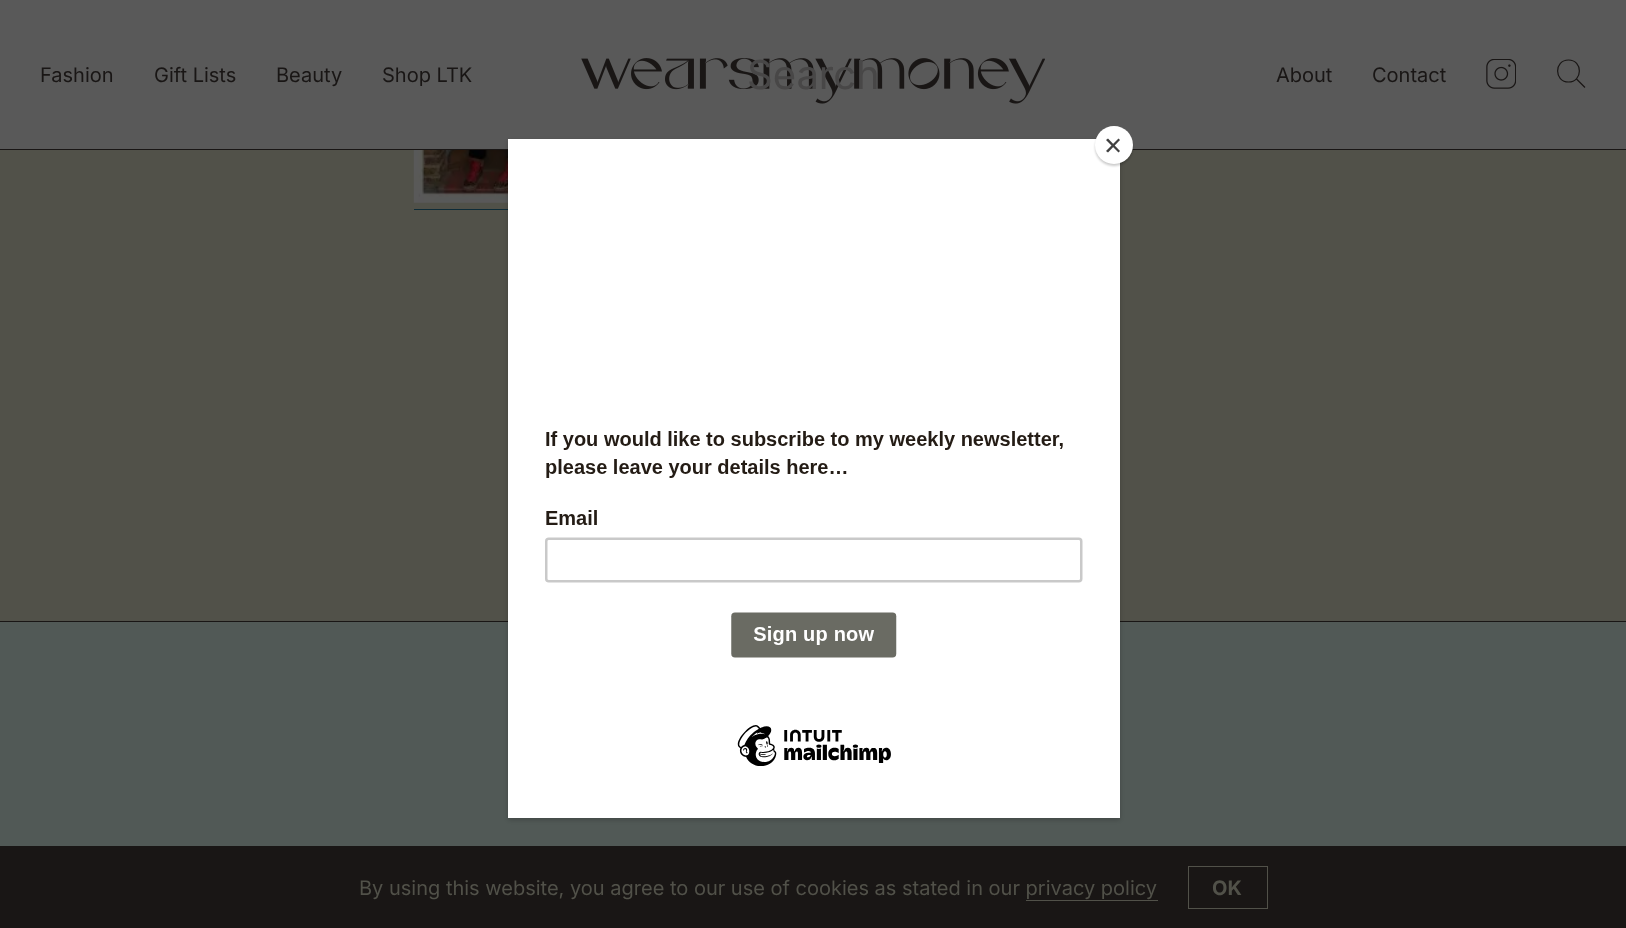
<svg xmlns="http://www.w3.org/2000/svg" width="1626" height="928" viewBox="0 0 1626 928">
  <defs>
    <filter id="blur1" x="-50%" y="-200%" width="200%" height="500%"><feGaussianBlur stdDeviation="2.5"/></filter>
    <filter id="blur2" x="-50%" y="-200%" width="200%" height="500%"><feGaussianBlur stdDeviation="1"/></filter>
  </defs>
  <rect width="100%" height="100%" fill="#515149"/>
  <rect x="0" y="0" width="1626" height="149" fill="#595959"/>
  <rect x="0" y="149" width="1626" height="1" fill="#191615"/>
  <image x="581" y="58" width="464" height="46" href="img1.png"/>
  <text x="40" y="82" font-family="Inter" font-size="20" fill="#191615">Fashion</text>
  <text x="154" y="82" font-family="Inter" font-size="20" fill="#191615">Gift Lists</text>
  <text x="276" y="82" font-family="Inter" font-size="20" fill="#191615">Beauty</text>
  <text x="382" y="82" font-family="Inter" font-size="20" fill="#191615">Shop LTK</text>
  <text x="747" y="89" font-family="Inter" font-size="40" fill="#484747">Search</text>
  <text x="1276" y="82" font-family="Inter" font-size="20" fill="#191615">About</text>
  <text x="1372" y="82" font-family="Inter" font-size="20" fill="#191615">Contact</text>
  <image x="1486" y="59" width="30" height="30" href="img2.png"/>
  <path d="M1568.5 82C1583 82 1583 60 1568.5 60C1554 60 1554 82 1568.5 82ZM1576 78.5L1585 87.5" fill="none" stroke="#191615" stroke-width="1.2"/>
  <image x="413" y="150" width="95" height="53" href="img4.png"/>
  <rect x="414" y="209" width="94" height="1" fill="#0d2b38"/>
  <rect x="0" y="622" width="1626" height="224" fill="#515956"/>
  <rect x="0" y="621" width="1626" height="1" fill="#191615"/>
  <rect x="508" y="141" width="612" height="679" fill="#000000" fill-opacity="0.2" filter="url(#blur1)"/>
  <image x="508" y="139" width="612" height="679" href="img3.png"/>
  <rect x="1095" y="129" width="38" height="37" rx="18.5" fill="#000000" fill-opacity="0.2" filter="url(#blur2)"/>
  <circle cx="1114" cy="145" r="19" fill="#ffffff"/>
  <path d="M1118.5 138.5L1120 140L1108 152.5L1106 151Z" fill="#414141"/>
  <path d="M1106 140L1108 138.5L1120 151L1118.5 152.5Z" fill="#414141"/>
  <rect x="0" y="846" width="1626" height="82" fill="#191615"/>
  <text x="359" y="895" font-family="Inter" font-size="20" fill="#515149">By using this website, you agree to our use of cookies as stated in our privacy policy</text>
  <rect x="1026" y="900" width="132" height="1" fill="#515149"/>
  <rect x="1188.5" y="866.5" width="79" height="42" fill="none" stroke="#515149"/>
  <text x="1212" y="895" font-family="Inter" font-size="20" font-weight="bold" fill="#515149">OK</text>
</svg>
